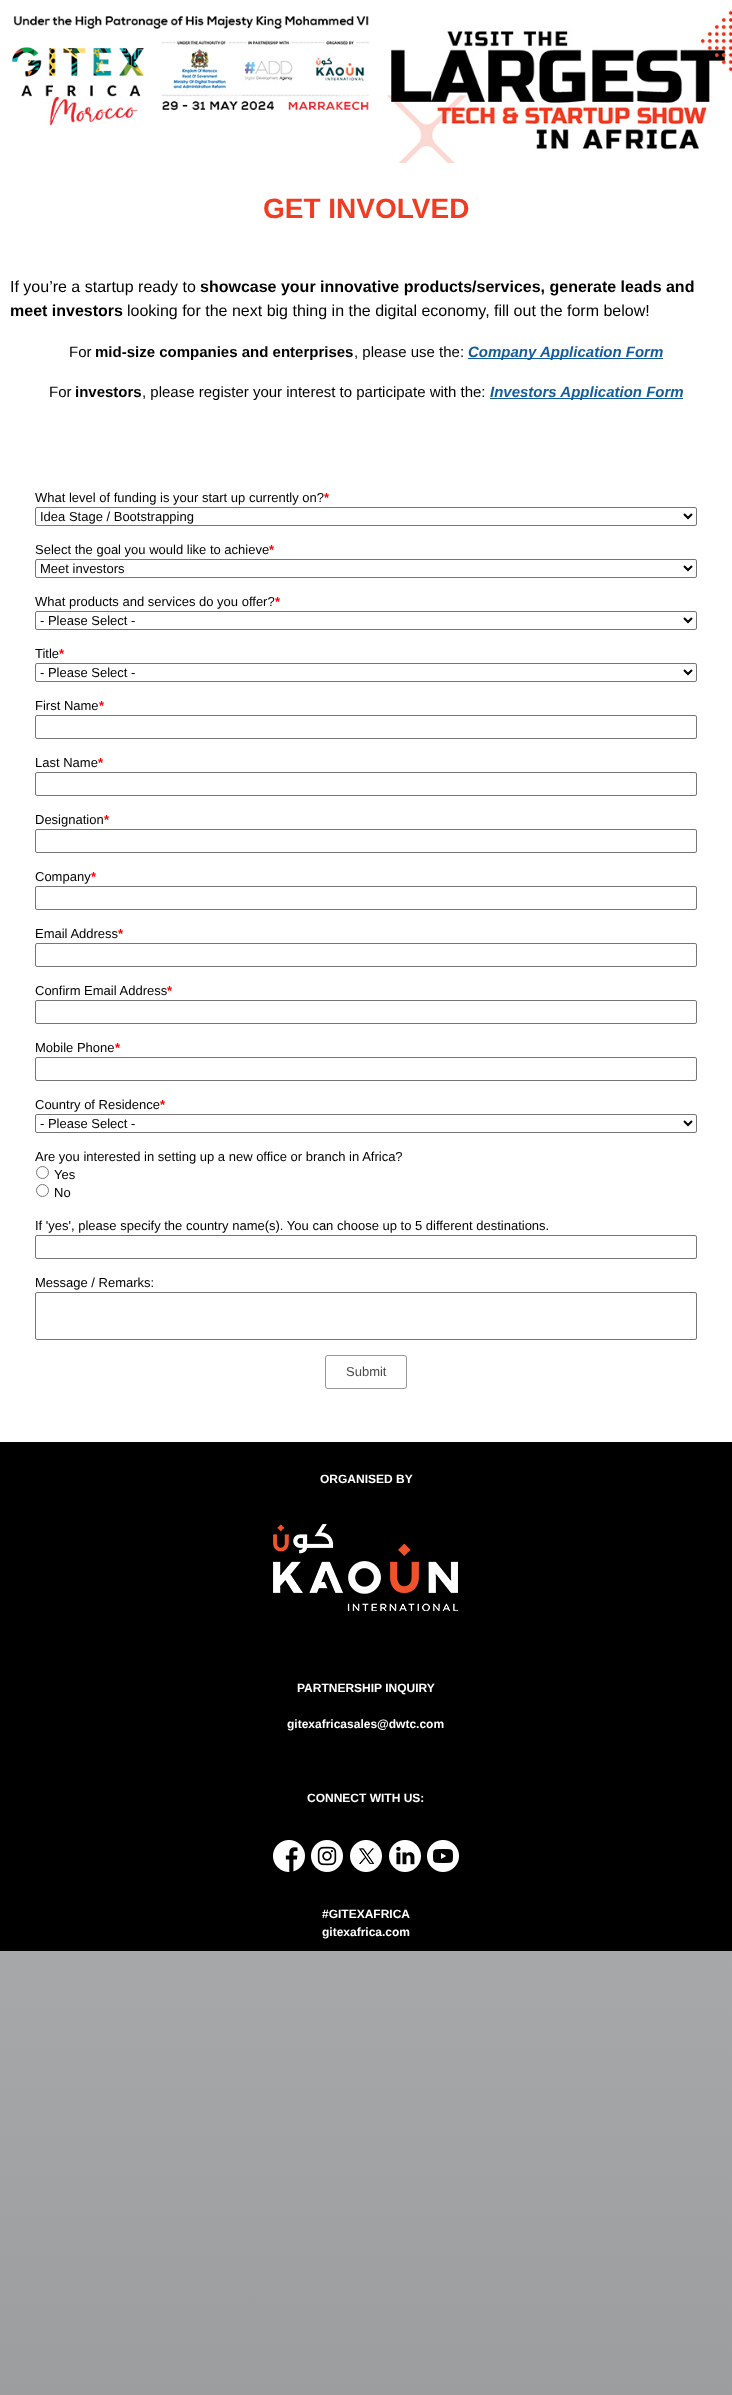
<svg xmlns="http://www.w3.org/2000/svg" width="732" height="2395" viewBox="0 0 732 2395">
  <defs>
    <linearGradient id="g1" gradientUnits="userSpaceOnUse" x1="366" y1="0" x2="366" y2="2395"><stop offset="0" stop-color="#d4d6d7"/><stop offset="1" stop-color="#9c9d9e"/></linearGradient>
  </defs>
  <rect width="100%" height="100%" fill="#ffffff"/>
  <rect x="0" y="1951" width="732" height="444" fill="url(#g1)"/>
  <image x="12" y="10" width="720" height="153" href="img1.png"/>
  <text x="263" y="218" font-family="Liberation Sans" font-size="28" font-weight="bold" fill="#f03c23">GET INVOLVED</text>
  <text x="10" y="292" font-family="Liberation Sans" font-size="16" fill="#000000">If you’re a startup ready to</text>
  <text x="200" y="292" font-family="Liberation Sans" font-size="16" font-weight="bold" fill="#000000">showcase your innovative products/services, generate leads and</text>
  <text x="10" y="316" font-family="Liberation Sans" font-size="16" font-weight="bold" fill="#000000">meet investors</text>
  <text x="127" y="316" font-family="Liberation Sans" font-size="16" fill="#000000">looking for the next big thing in the digital economy, fill out the form below!</text>
  <text x="69" y="357" font-family="Liberation Sans" font-size="15" fill="#000000">For</text>
  <text x="95" y="357" font-family="Liberation Sans" font-size="15" font-weight="bold" fill="#000000">mid-size companies and enterprises</text>
  <text x="354" y="357" font-family="Liberation Sans" font-size="15" fill="#000000">, please use the:</text>
  <rect x="468" y="358" width="195" height="1" fill="#145c9e"/>
  <text x="468" y="357" font-family="Liberation Sans" font-size="15" font-weight="bold" font-style="italic" fill="#145c9e">Company Application Form</text>
  <text x="49" y="397" font-family="Liberation Sans" font-size="15" fill="#000000">For</text>
  <text x="75" y="397" font-family="Liberation Sans" font-size="15" font-weight="bold" fill="#000000">investors</text>
  <text x="142" y="397" font-family="Liberation Sans" font-size="15" fill="#000000">, please register your interest to participate with the:</text>
  <rect x="490" y="398" width="193" height="1" fill="#145c9e"/>
  <text x="490" y="397" font-family="Liberation Sans" font-size="15" font-weight="bold" font-style="italic" fill="#145c9e">Investors Application Form</text>
  <text x="35" y="502" font-family="Liberation Sans" font-size="13" fill="#000000">What level of funding is your start up currently on?</text>
  <text x="324" y="502" font-family="Liberation Sans" font-size="13" font-weight="bold" fill="#ff0000">*</text>
  <rect x="35.5" y="507.5" width="661" height="18" rx="1.5" fill="none" stroke="#767676"/>
  <path d="M684 514L688 518L692 514" fill="none" stroke="#000000" stroke-width="2"/>
  <text x="40" y="521" font-family="Liberation Sans" font-size="13" fill="#000000">Idea Stage / Bootstrapping</text>
  <text x="35" y="554" font-family="Liberation Sans" font-size="13" fill="#000000">Select the goal you would like to achieve</text>
  <text x="269" y="554" font-family="Liberation Sans" font-size="13" font-weight="bold" fill="#ff0000">*</text>
  <rect x="35.5" y="559.5" width="661" height="18" rx="1.5" fill="none" stroke="#767676"/>
  <path d="M684 566L688 570L692 566" fill="none" stroke="#000000" stroke-width="2"/>
  <text x="40" y="573" font-family="Liberation Sans" font-size="13" fill="#000000">Meet investors</text>
  <text x="35" y="606" font-family="Liberation Sans" font-size="13" fill="#000000">What products and services do you offer?</text>
  <text x="275" y="606" font-family="Liberation Sans" font-size="13" font-weight="bold" fill="#ff0000">*</text>
  <rect x="35.5" y="611.5" width="661" height="18" rx="1.5" fill="none" stroke="#767676"/>
  <path d="M684 618L688 622L692 618" fill="none" stroke="#000000" stroke-width="2"/>
  <text x="40" y="625" font-family="Liberation Sans" font-size="13" fill="#000000">- Please Select -</text>
  <text x="35" y="658" font-family="Liberation Sans" font-size="13" fill="#000000">Title</text>
  <text x="59" y="658" font-family="Liberation Sans" font-size="13" font-weight="bold" fill="#ff0000">*</text>
  <rect x="35.5" y="663.5" width="661" height="18" rx="1.5" fill="none" stroke="#767676"/>
  <path d="M684 670L688 674L692 670" fill="none" stroke="#000000" stroke-width="2"/>
  <text x="40" y="677" font-family="Liberation Sans" font-size="13" fill="#000000">- Please Select -</text>
  <text x="35" y="710" font-family="Liberation Sans" font-size="13" fill="#000000">First Name</text>
  <text x="99" y="710" font-family="Liberation Sans" font-size="13" font-weight="bold" fill="#ff0000">*</text>
  <rect x="35.5" y="715.5" width="661" height="23" rx="1.5" fill="none" stroke="#767676"/>
  <text x="35" y="767" font-family="Liberation Sans" font-size="13" fill="#000000">Last Name</text>
  <text x="98" y="767" font-family="Liberation Sans" font-size="13" font-weight="bold" fill="#ff0000">*</text>
  <rect x="35.5" y="772.5" width="661" height="23" rx="1.5" fill="none" stroke="#767676"/>
  <text x="35" y="824" font-family="Liberation Sans" font-size="13" fill="#000000">Designation</text>
  <text x="104" y="824" font-family="Liberation Sans" font-size="13" font-weight="bold" fill="#ff0000">*</text>
  <rect x="35.5" y="829.5" width="661" height="23" rx="1.5" fill="none" stroke="#767676"/>
  <text x="35" y="881" font-family="Liberation Sans" font-size="13" fill="#000000">Company</text>
  <text x="91" y="881" font-family="Liberation Sans" font-size="13" font-weight="bold" fill="#ff0000">*</text>
  <rect x="35.5" y="886.5" width="661" height="23" rx="1.5" fill="none" stroke="#767676"/>
  <text x="35" y="938" font-family="Liberation Sans" font-size="13" fill="#000000">Email Address</text>
  <text x="118" y="938" font-family="Liberation Sans" font-size="13" font-weight="bold" fill="#ff0000">*</text>
  <rect x="35.5" y="943.5" width="661" height="23" rx="1.5" fill="none" stroke="#767676"/>
  <text x="35" y="995" font-family="Liberation Sans" font-size="13" fill="#000000">Confirm Email Address</text>
  <text x="167" y="995" font-family="Liberation Sans" font-size="13" font-weight="bold" fill="#ff0000">*</text>
  <rect x="35.5" y="1000.5" width="661" height="23" rx="1.5" fill="none" stroke="#767676"/>
  <text x="35" y="1052" font-family="Liberation Sans" font-size="13" fill="#000000">Mobile Phone</text>
  <text x="115" y="1052" font-family="Liberation Sans" font-size="13" font-weight="bold" fill="#ff0000">*</text>
  <rect x="35.5" y="1057.5" width="661" height="23" rx="1.5" fill="none" stroke="#767676"/>
  <text x="35" y="1109" font-family="Liberation Sans" font-size="13" fill="#000000">Country of Residence</text>
  <text x="160" y="1109" font-family="Liberation Sans" font-size="13" font-weight="bold" fill="#ff0000">*</text>
  <rect x="35.5" y="1114.5" width="661" height="18" rx="1.5" fill="none" stroke="#767676"/>
  <path d="M684 1121L688 1125L692 1121" fill="none" stroke="#000000" stroke-width="2"/>
  <text x="40" y="1128" font-family="Liberation Sans" font-size="13" fill="#000000">- Please Select -</text>
  <text x="35" y="1161" font-family="Liberation Sans" font-size="13" fill="#000000">Are you interested in setting up a new office or branch in Africa?</text>
  <circle cx="42.5" cy="1172.5" r="6" fill="none" stroke="#767676"/>
  <text x="54" y="1179" font-family="Liberation Sans" font-size="13" fill="#000000">Yes</text>
  <circle cx="42.5" cy="1190.5" r="6" fill="none" stroke="#767676"/>
  <text x="54" y="1197" font-family="Liberation Sans" font-size="13" fill="#000000">No</text>
  <text x="35" y="1230" font-family="Liberation Sans" font-size="13" fill="#000000">If 'yes', please specify the country name(s). You can choose up to 5 different destinations.</text>
  <rect x="35.5" y="1235.5" width="661" height="23" rx="1.5" fill="none" stroke="#767676"/>
  <text x="35" y="1287" font-family="Liberation Sans" font-size="13" fill="#000000">Message / Remarks:</text>
  <rect x="35.5" y="1292.5" width="661" height="47" rx="1.5" fill="none" stroke="#767676"/>
  <rect x="325.5" y="1355.5" width="81" height="33" rx="2.5" fill="none" stroke="#979797"/>
  <text x="346" y="1376" font-family="Liberation Sans" font-size="13" fill="#4a4a4a">Submit</text>
  <rect x="0" y="1442" width="732" height="509" fill="#000000"/>
  <text x="320" y="1483" font-family="Liberation Sans" font-size="12" font-weight="bold" fill="#ffffff">ORGANISED BY</text>
  <image x="273" y="1524" width="185" height="87" href="img2.png"/>
  <text x="297" y="1692" font-family="Liberation Sans" font-size="12" font-weight="bold" fill="#ffffff">PARTNERSHIP INQUIRY</text>
  <text x="287" y="1728" font-family="Liberation Sans" font-size="12" font-weight="bold" fill="#ffffff">gitexafricasales@dwtc.com</text>
  <text x="307" y="1802" font-family="Liberation Sans" font-size="12" font-weight="bold" fill="#ffffff">CONNECT WITH US:</text>
  <image x="273" y="1840" width="32" height="32" href="img3.png"/>
  <image x="311" y="1840" width="32" height="32" href="img4.png"/>
  <image x="350" y="1840" width="32" height="32" href="img5.png"/>
  <image x="389" y="1840" width="32" height="32" href="img6.png"/>
  <image x="427" y="1840" width="32" height="32" href="img7.png"/>
  <text x="322" y="1918" font-family="Liberation Sans" font-size="12" font-weight="bold" fill="#ffffff">#GITEXAFRICA</text>
  <text x="322" y="1936" font-family="Liberation Sans" font-size="12" font-weight="bold" fill="#ffffff">gitexafrica.com</text>
</svg>
